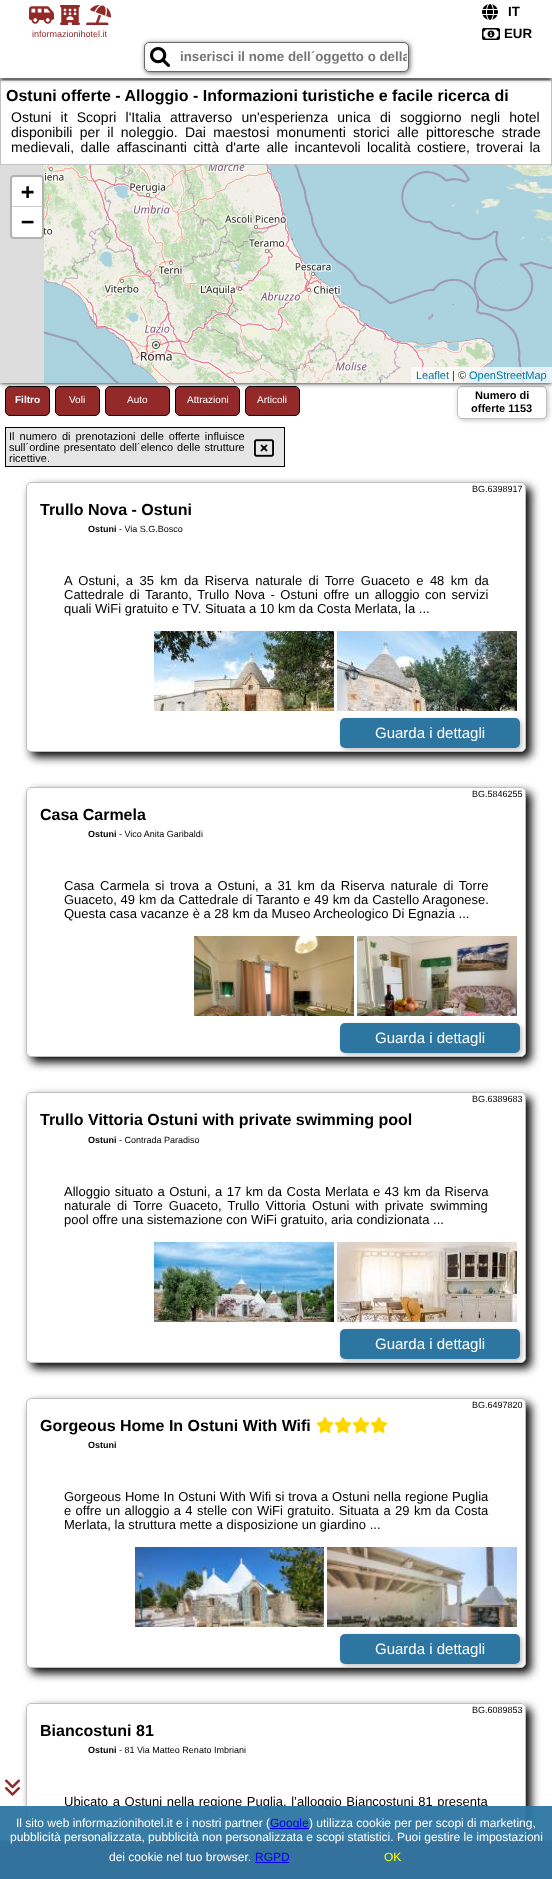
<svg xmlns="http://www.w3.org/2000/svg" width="552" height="1879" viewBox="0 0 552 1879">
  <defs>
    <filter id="blur1" x="-50%" y="-200%" width="200%" height="500%"><feGaussianBlur stdDeviation="2.5"/></filter>
    <clipPath id="clip1"><path d="M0 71H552V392H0ZM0 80H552V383H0Z" clip-rule="evenodd"/></clipPath>
    <clipPath id="clip2"><rect x="180" y="49" width="227" height="15"/></clipPath>
    <filter id="blur2" x="-50%" y="-200%" width="200%" height="500%"><feGaussianBlur stdDeviation="5"/></filter>
    <clipPath id="clip3"><rect x="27" y="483" width="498" height="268" rx="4"/></clipPath>
    <clipPath id="clip4"><rect x="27" y="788" width="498" height="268" rx="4"/></clipPath>
    <clipPath id="clip5"><rect x="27" y="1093" width="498" height="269" rx="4"/></clipPath>
    <clipPath id="clip6"><rect x="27" y="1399" width="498" height="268" rx="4"/></clipPath>
    <filter id="blur3" x="-50%" y="-200%" width="200%" height="500%"><feGaussianBlur stdDeviation="1"/></filter>
  </defs>
  <rect width="100%" height="100%" fill="#ffffff"/>
  <rect x="5.5" y="386.5" width="44" height="29" rx="4.5" fill="#942929" stroke="#000000"/>
  <rect x="55.5" y="386.5" width="44" height="29" rx="4.5" fill="#942929" stroke="#000000"/>
  <rect x="105.5" y="386.5" width="64" height="29" rx="4.5" fill="#942929" stroke="#000000"/>
  <rect x="175.5" y="386.5" width="64" height="29" rx="4.5" fill="#942929" stroke="#000000"/>
  <rect x="245.5" y="386.5" width="54" height="29" rx="4.5" fill="#942929" stroke="#000000"/>
  <rect x="458" y="387" width="90" height="33" rx="5" fill="#c0c0c0" filter="url(#blur1)"/>
  <rect x="457.5" y="386.5" width="89" height="32" rx="4.5" fill="#ffffff" stroke="#c0c0c0"/>
  <g clip-path="url(#clip1)">
    <rect x="0" y="80" width="552" height="303" fill="#000000" filter="url(#blur1)"/>
  </g>
  <rect x="0.5" y="80.5" width="551" height="84" fill="none" stroke="#c0c0c0"/>
  <rect x="0" y="0" width="552" height="78" fill="#000000" filter="url(#blur1)"/>
  <rect x="0" y="0" width="552" height="78" fill="#ffffff"/>
  <image x="482" y="4" width="16" height="16" href="img1.png"/>
  <text x="508" y="16" font-family="Liberation Sans" font-size="13.3" font-weight="bold" fill="#000000">IT</text>
  <image x="29" y="6" width="25" height="18" href="img2.png"/>
  <image x="60" y="5" width="20" height="20" href="img3.png"/>
  <image x="86" y="5" width="25" height="20" href="img4.png"/>
  <text x="32" y="37" font-family="Liberation Sans" font-size="9" fill="#942929">informazionihotel.it</text>
  <image x="482" y="28" width="18" height="12" href="img5.png"/>
  <text x="504" y="38" font-family="Liberation Sans" font-size="13.3" font-weight="bold" fill="#000000">EUR</text>
  <rect x="145" y="43" width="265" height="30" rx="5" fill="#676868" filter="url(#blur1)"/>
  <rect x="144.5" y="42.5" width="264" height="29" rx="4.5" fill="#ffffff" stroke="#676868"/>
  <image x="150" y="47" width="20" height="20" href="img6.png"/>
  <g clip-path="url(#clip2)">
    <text x="180" y="61" font-family="Liberation Sans" font-size="13.3" font-weight="bold" fill="#757575">inserisci il nome dell´oggetto o della</text>
  </g>
  <text x="6" y="101" font-family="Liberation Sans" font-size="16" font-weight="bold" fill="#000000">Ostuni offerte - Alloggio - Informazioni turistiche e facile ricerca di</text>
  <text x="11" y="122" word-spacing="5.25" font-family="Liberation Sans" font-size="14" fill="#000000">Ostuni it Scopri l'Italia attraverso un'esperienza unica di soggiorno negli hotel</text>
  <text x="11" y="137" word-spacing="3.4" font-family="Liberation Sans" font-size="14" fill="#000000">disponibili per il noleggio. Dai maestosi monumenti storici alle pittoresche strade</text>
  <text x="11" y="152" word-spacing="2.5" font-family="Liberation Sans" font-size="14" fill="#000000">medievali, dalle affascinanti città d'arte alle incantevoli località costiere, troverai la</text>
  <rect x="0" y="165" width="44" height="218" fill="#dddddd"/>
  <image x="44" y="165" width="256" height="35" href="img7.png"/>
  <image x="300" y="165" width="252" height="35" href="img8.png"/>
  <image x="44" y="200" width="256" height="183" href="img9.png"/>
  <image x="300" y="200" width="252" height="183" href="img10.png"/>
  <rect x="11" y="176" width="32" height="62" rx="3" fill="none" stroke="#b1b1b1" stroke-width="2"/>
  <path d="M14 177H40C41 177 42 178 42 179V207H12V179C12 178 13 177 14 177Z" fill="#ffffff"/>
  <rect x="12" y="206" width="30" height="1" fill="#cccccc"/>
  <text x="21" y="199" font-family="DejaVu Sans Mono" font-size="22" font-weight="bold" fill="#000000">+</text>
  <path d="M12 207H42V235C42 236 41 237 40 237H14C13 237 12 236 12 235Z" fill="#ffffff"/>
  <text x="21" y="229" font-family="DejaVu Sans Mono" font-size="22" font-weight="bold" fill="#000000">−</text>
  <rect x="411" y="367" width="141" height="16" fill="#ffffff" fill-opacity="0.7"/>
  <text x="416" y="379" font-family="Liberation Sans" font-size="11" fill="#0078a8">Leaflet</text>
  <text x="452" y="379" font-family="Liberation Sans" font-size="11" fill="#333333">| ©</text>
  <text x="469" y="379" font-family="Liberation Sans" font-size="11" fill="#0078a8">OpenStreetMap</text>
  <text x="15" y="403" font-family="Liberation Sans" font-size="10" font-weight="bold" fill="#ffffff">Filtro</text>
  <text x="69" y="403" font-family="Liberation Sans" font-size="10" fill="#ffffff">Voli</text>
  <text x="127" y="403" font-family="Liberation Sans" font-size="10" fill="#ffffff">Auto</text>
  <text x="187" y="403" font-family="Liberation Sans" font-size="10" fill="#ffffff">Attrazioni</text>
  <text x="257" y="403" font-family="Liberation Sans" font-size="10" fill="#ffffff">Articoli</text>
  <text x="475" y="399" font-family="Liberation Sans" font-size="11" font-weight="bold" fill="#000000">Numero di</text>
  <text x="471" y="412" font-family="Liberation Sans" font-size="11" font-weight="bold" fill="#000000">offerte 1153</text>
  <rect x="5.5" y="427.5" width="279" height="39" fill="#e6e6e6" stroke="#000000"/>
  <text x="9" y="440" word-spacing="2" font-family="Liberation Sans" font-size="11" fill="#000000">Il numero di prenotazioni delle offerte influisce</text>
  <text x="9" y="451" word-spacing="1" font-family="Liberation Sans" font-size="11" fill="#000000">sull´ordine presentato dell´elenco delle strutture</text>
  <image x="254" y="439" width="20" height="18" href="img11.png"/>
  <text x="9" y="462" font-family="Liberation Sans" font-size="11" fill="#000000">ricettive.</text>
  <rect x="31" y="487" width="500" height="270" rx="5" fill="#000000" filter="url(#blur2)"/>
  <rect x="26.5" y="482.5" width="499" height="269" rx="4.5" fill="#ffffff" stroke="#c0c0c0"/>
  <text x="472" y="492" font-family="Liberation Sans" font-size="9" fill="#000000">BG.6398917</text>
  <text x="40" y="515" font-family="Liberation Sans" font-size="16" font-weight="bold" fill="#000000">Trullo Nova - Ostuni</text>
  <text x="88" y="532" font-family="Liberation Sans" font-size="9" font-weight="bold" fill="#000000">Ostuni</text>
  <text x="119" y="532" font-family="Liberation Sans" font-size="9" fill="#000000">- Via S.G.Bosco</text>
  <text x="64" y="585" word-spacing="2.75" font-family="Liberation Sans" font-size="13" fill="#000000">A Ostuni, a 35 km da Riserva naturale di Torre Guaceto e 48 km da</text>
  <text x="64" y="599" word-spacing="1.9" font-family="Liberation Sans" font-size="13" fill="#000000">Cattedrale di Taranto, Trullo Nova - Ostuni offre un alloggio con servizi</text>
  <text x="64" y="613" font-family="Liberation Sans" font-size="13" fill="#000000">quali WiFi gratuito e TV. Situata a 10 km da Costa Merlata, la ...</text>
  <image x="154" y="631" width="180" height="80" href="img12.png"/>
  <image x="337" y="631" width="180" height="80" href="img13.png"/>
  <g clip-path="url(#clip3)">
    <rect x="342" y="720" width="180" height="30" rx="5" fill="#c0c0c0" filter="url(#blur1)"/>
  </g>
  <rect x="340" y="718" width="180" height="30" rx="5" fill="#2d76a2"/>
  <text x="375" y="738" font-family="Liberation Sans" font-size="15" fill="#ffffff">Guarda i dettagli</text>
  <rect x="31" y="792" width="500" height="270" rx="5" fill="#000000" filter="url(#blur2)"/>
  <rect x="26.5" y="787.5" width="499" height="269" rx="4.5" fill="#ffffff" stroke="#c0c0c0"/>
  <text x="472" y="797" font-family="Liberation Sans" font-size="9" fill="#000000">BG.5846255</text>
  <text x="40" y="820" font-family="Liberation Sans" font-size="16" font-weight="bold" fill="#000000">Casa Carmela</text>
  <text x="88" y="837" font-family="Liberation Sans" font-size="9" font-weight="bold" fill="#000000">Ostuni</text>
  <text x="119" y="837" font-family="Liberation Sans" font-size="9" fill="#000000">- Vico Anita Garibaldi</text>
  <text x="64" y="890" word-spacing="2.1" font-family="Liberation Sans" font-size="13" fill="#000000">Casa Carmela si trova a Ostuni, a 31 km da Riserva naturale di Torre</text>
  <text x="64" y="904" word-spacing="0.25" font-family="Liberation Sans" font-size="13" fill="#000000">Guaceto, 49 km da Cattedrale di Taranto e 49 km da Castello Aragonese.</text>
  <text x="64" y="918" font-family="Liberation Sans" font-size="13" fill="#000000">Questa casa vacanze è a 28 km da Museo Archeologico Di Egnazia ...</text>
  <image x="194" y="936" width="160" height="80" href="img14.png"/>
  <image x="357" y="936" width="160" height="80" href="img15.png"/>
  <g clip-path="url(#clip4)">
    <rect x="342" y="1025" width="180" height="30" rx="5" fill="#c0c0c0" filter="url(#blur1)"/>
  </g>
  <rect x="340" y="1023" width="180" height="30" rx="5" fill="#2d76a2"/>
  <text x="375" y="1043" font-family="Liberation Sans" font-size="15" fill="#ffffff">Guarda i dettagli</text>
  <rect x="31" y="1097" width="500" height="271" rx="5" fill="#000000" filter="url(#blur2)"/>
  <rect x="26.5" y="1092.5" width="499" height="270" rx="4.5" fill="#ffffff" stroke="#c0c0c0"/>
  <text x="472" y="1102" font-family="Liberation Sans" font-size="9" fill="#000000">BG.6389683</text>
  <text x="40" y="1125" font-family="Liberation Sans" font-size="16" font-weight="bold" fill="#000000">Trullo Vittoria Ostuni with private swimming pool</text>
  <text x="88" y="1143" font-family="Liberation Sans" font-size="9" font-weight="bold" fill="#000000">Ostuni</text>
  <text x="119" y="1143" font-family="Liberation Sans" font-size="9" fill="#000000">- Contrada Paradiso</text>
  <text x="64" y="1196" word-spacing="0.9" font-family="Liberation Sans" font-size="13" fill="#000000">Alloggio situato a Ostuni, a 17 km da Costa Merlata e 43 km da Riserva</text>
  <text x="64" y="1210" word-spacing="2.5" font-family="Liberation Sans" font-size="13" fill="#000000">naturale di Torre Guaceto, Trullo Vittoria Ostuni with private swimming</text>
  <text x="64" y="1224" font-family="Liberation Sans" font-size="13" fill="#000000">pool offre una sistemazione con WiFi gratuito, aria condizionata ...</text>
  <image x="154" y="1242" width="180" height="80" href="img16.png"/>
  <image x="337" y="1242" width="180" height="80" href="img17.png"/>
  <g clip-path="url(#clip5)">
    <rect x="342" y="1331" width="180" height="30" rx="5" fill="#c0c0c0" filter="url(#blur1)"/>
  </g>
  <rect x="340" y="1329" width="180" height="30" rx="5" fill="#2d76a2"/>
  <text x="375" y="1349" font-family="Liberation Sans" font-size="15" fill="#ffffff">Guarda i dettagli</text>
  <rect x="31" y="1403" width="500" height="270" rx="5" fill="#000000" filter="url(#blur2)"/>
  <rect x="26.5" y="1398.5" width="499" height="269" rx="4.5" fill="#ffffff" stroke="#c0c0c0"/>
  <text x="472" y="1408" font-family="Liberation Sans" font-size="9" fill="#000000">BG.6497820</text>
  <text x="40" y="1431" font-family="Liberation Sans" font-size="16" font-weight="bold" fill="#000000">Gorgeous Home In Ostuni With Wifi</text>
  <image x="316" y="1417" width="18" height="16" href="img18.png"/>
  <image x="334" y="1417" width="18" height="16" href="img18.png"/>
  <image x="352" y="1417" width="18" height="16" href="img18.png"/>
  <image x="370" y="1417" width="18" height="16" href="img18.png"/>
  <text x="88" y="1448" font-family="Liberation Sans" font-size="9" font-weight="bold" fill="#000000">Ostuni</text>
  <text x="64" y="1501" word-spacing="0.25" font-family="Liberation Sans" font-size="13" fill="#000000">Gorgeous Home In Ostuni With Wifi si trova a Ostuni nella regione Puglia</text>
  <text x="64" y="1515" word-spacing="0.75" font-family="Liberation Sans" font-size="13" fill="#000000">e offre un alloggio a 4 stelle con WiFi gratuito. Situata a 29 km da Costa</text>
  <text x="64" y="1529" font-family="Liberation Sans" font-size="13" fill="#000000">Merlata, la struttura mette a disposizione un giardino ...</text>
  <image x="135" y="1547" width="189" height="80" href="img19.png"/>
  <image x="327" y="1547" width="190" height="80" href="img20.png"/>
  <g clip-path="url(#clip6)">
    <rect x="342" y="1636" width="180" height="30" rx="5" fill="#c0c0c0" filter="url(#blur1)"/>
  </g>
  <rect x="340" y="1634" width="180" height="30" rx="5" fill="#2d76a2"/>
  <text x="375" y="1654" font-family="Liberation Sans" font-size="15" fill="#ffffff">Guarda i dettagli</text>
  <rect x="31" y="1708" width="500" height="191" rx="5" fill="#000000" filter="url(#blur2)"/>
  <image x="5" y="1779" width="15" height="17" href="img21.png"/>
  <path d="M31 1703H521C524 1703 526 1705 526 1708V1841H26V1708C26 1705 28 1703 31 1703Z" fill="#ffffff"/>
  <rect x="26.5" y="1703.5" width="499" height="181" rx="4.5" fill="none" stroke="#c0c0c0"/>
  <text x="472" y="1713" font-family="Liberation Sans" font-size="9" fill="#000000">BG.6089853</text>
  <text x="40" y="1736" font-family="Liberation Sans" font-size="16" font-weight="bold" fill="#000000">Biancostuni 81</text>
  <text x="88" y="1753" font-family="Liberation Sans" font-size="9" font-weight="bold" fill="#000000">Ostuni</text>
  <text x="119" y="1753" font-family="Liberation Sans" font-size="9" fill="#000000">- 81 Via Matteo Renato Imbriani</text>
  <text x="64" y="1806" word-spacing="1" font-family="Liberation Sans" font-size="13" fill="#000000">Ubicato a Ostuni nella regione Puglia, l’alloggio Biancostuni 81 presenta</text>
  <rect x="0" y="1841" width="552" height="38" fill="#942929" filter="url(#blur3)"/>
  <rect x="0" y="1841" width="552" height="38" fill="#942929"/>
  <rect x="0" y="1806" width="552" height="73" fill="#2d76a2" fill-opacity="0.95"/>
  <text x="16" y="1827" font-family="Liberation Sans" font-size="12" fill="#ffffff">Il sito web informazionihotel.it e i nostri partner (</text>
  <rect x="270" y="1828" width="39" height="1" fill="#0000ee"/>
  <text x="270" y="1827" font-family="Liberation Sans" font-size="12" fill="#0000ee">Google</text>
  <text x="309" y="1827" font-family="Liberation Sans" font-size="12" fill="#ffffff">) utilizza cookie per per scopi di marketing,</text>
  <text x="10" y="1841" font-family="Liberation Sans" font-size="12" fill="#ffffff">pubblicità personalizzata, pubblicità non personalizzata e scopi statistici. Puoi gestire le impostazioni</text>
  <text x="109" y="1861" font-family="Liberation Sans" font-size="12" fill="#ffffff">dei cookie nel tuo browser.</text>
  <text x="255" y="1861" font-family="Liberation Sans" font-size="12" fill="#0000ee">RGPD</text>
  <rect x="255" y="1862" width="34" height="1" fill="#0000ee"/>
  <text x="384" y="1861" font-family="Liberation Sans" font-size="12" fill="#ffff00">OK</text>
</svg>
